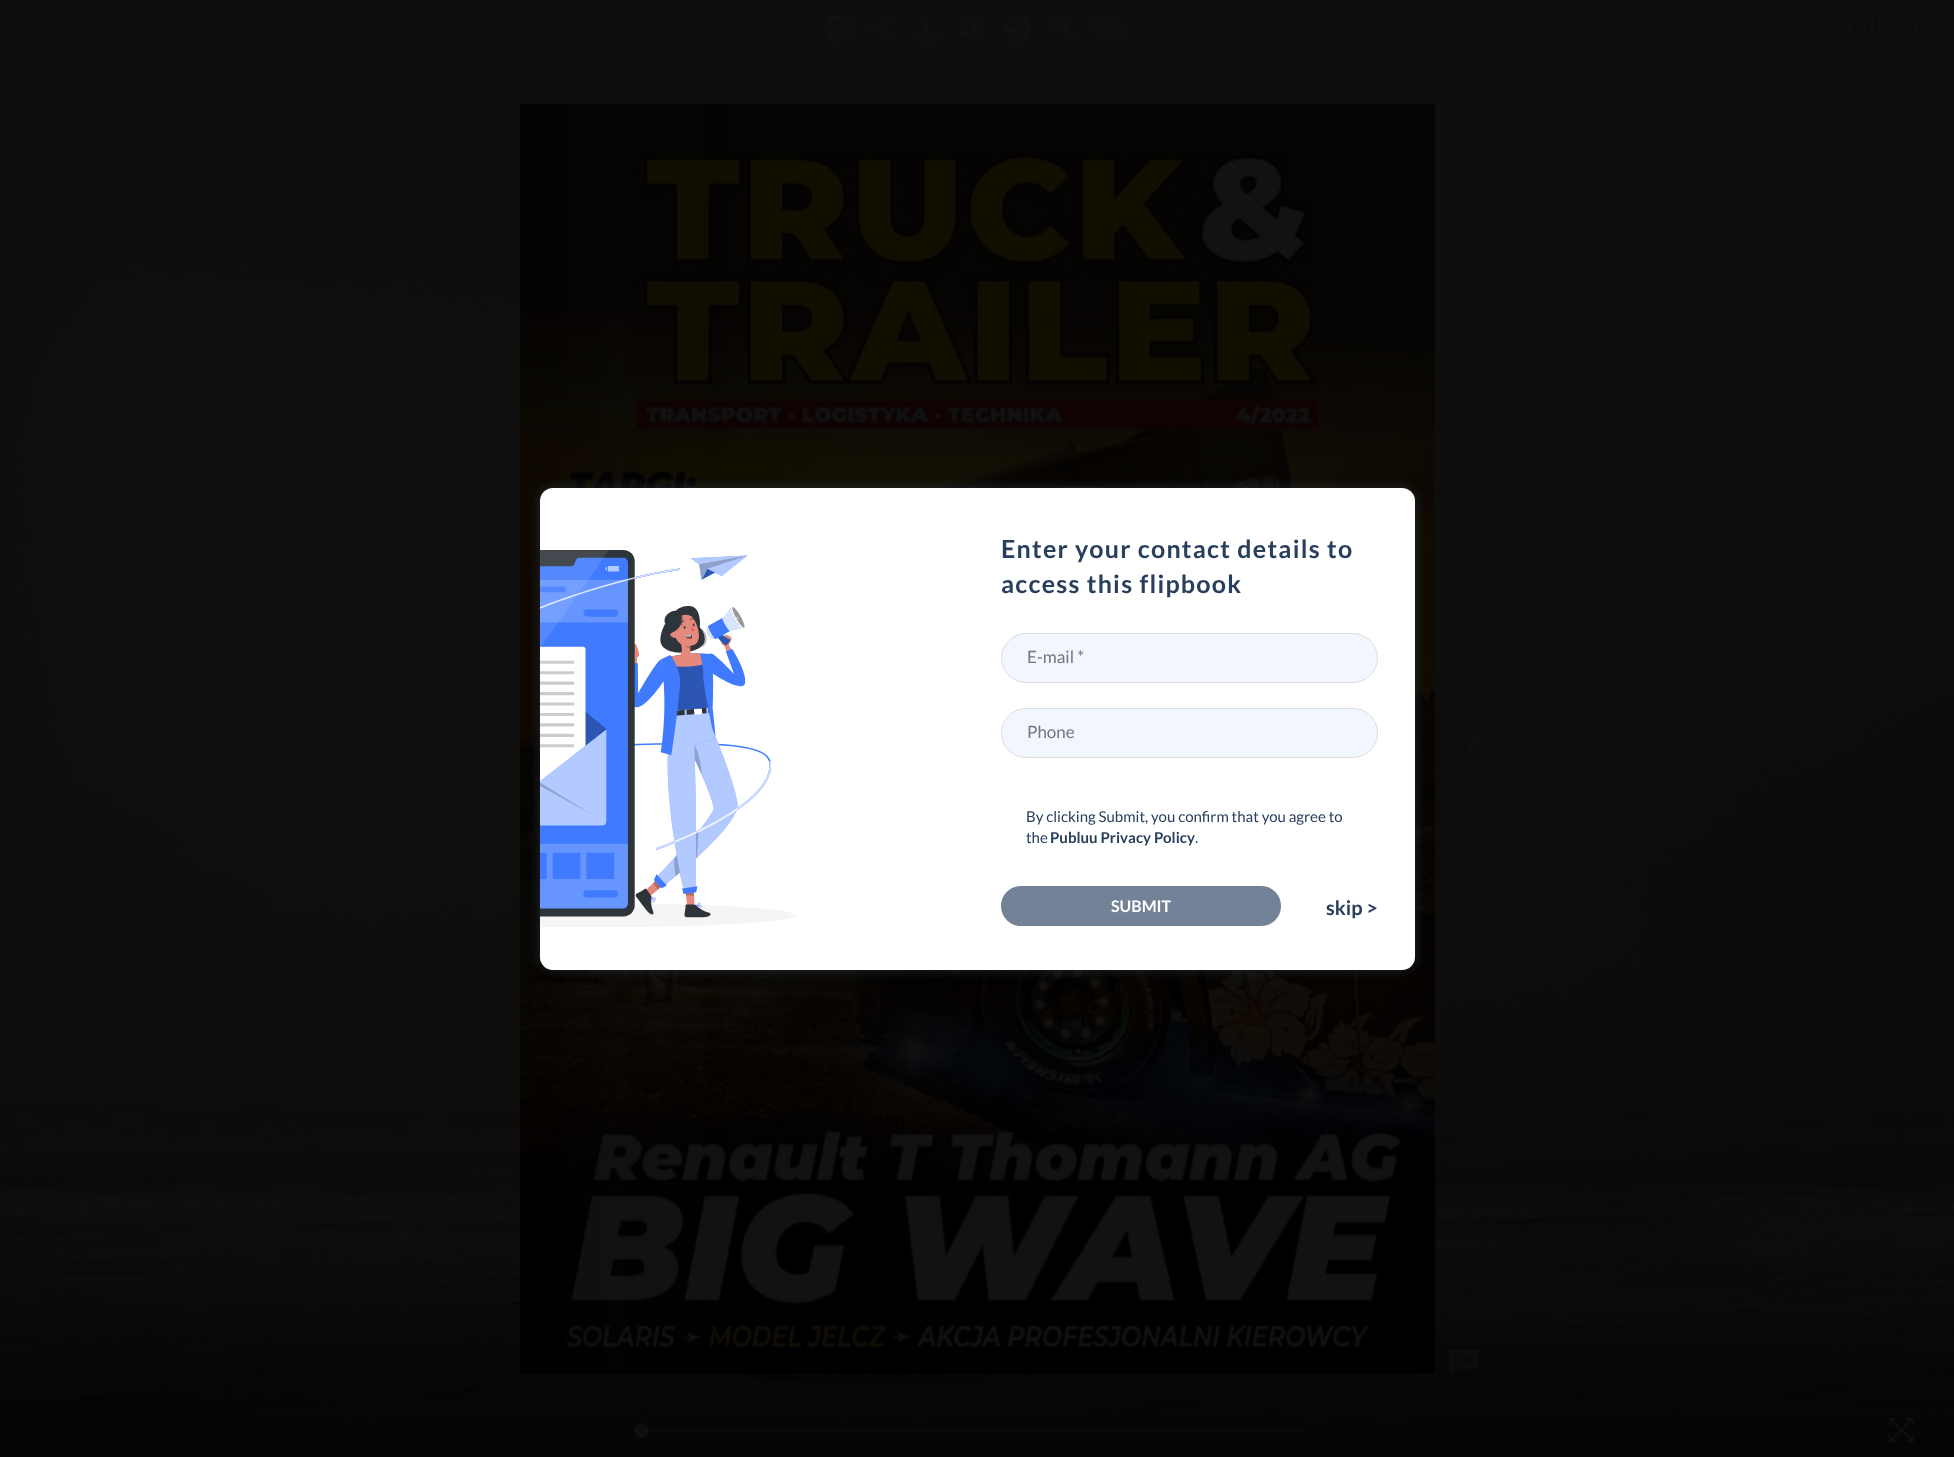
<svg xmlns="http://www.w3.org/2000/svg" width="1954" height="1457" viewBox="0 0 1954 1457">
  <defs>
    <filter id="blur1" x="-50%" y="-200%" width="200%" height="500%"><feGaussianBlur stdDeviation="6"/></filter>
  </defs>
  <rect width="100%" height="100%" fill="#ffffff"/>
  <image x="0" y="0" width="1954" height="1457" href="img1.png"/>
  <image x="830" y="16" width="25" height="25" href="img2.png"/>
  <image x="870" y="16" width="25" height="25" href="img3.png"/>
  <image x="915" y="16" width="25" height="25" href="img4.png"/>
  <image x="960" y="16" width="25" height="25" href="img5.png"/>
  <image x="1006" y="16" width="23" height="25" href="img6.png"/>
  <image x="1050" y="16" width="25" height="25" href="img7.png"/>
  <image x="1094" y="17" width="27" height="23" href="img8.png"/>
  <image x="1722" y="11" width="195" height="35" href="img9.png"/>
  <image x="520" y="104" width="915" height="1270" href="img10.png"/>
  <image x="520" y="104" width="206" height="1270" href="img11.png"/>
  <image x="1449" y="1350" width="30" height="24" href="img12.png"/>
  <path d="M1478.5 738L1462.5 714.5" fill="none" stroke="#121212" stroke-opacity="0.8" stroke-width="3.3" stroke-linecap="round" stroke-linejoin="round"/>
  <path d="M1478.5 738L1462.5 761.5" fill="none" stroke="#121212" stroke-opacity="0.8" stroke-width="3.3" stroke-linecap="round" stroke-linejoin="round"/>
  <rect x="634" y="1429" width="672" height="3" rx="1.5" fill="#121212" fill-opacity="0.35"/>
  <circle cx="641.5" cy="1430.5" r="7.5" fill="#121212" fill-opacity="0.7"/>
  <image x="1889" y="1418" width="25" height="25" href="img13.png"/>
  <rect x="540" y="488" width="875" height="482" rx="13" fill="#28323c" fill-opacity="0.7" filter="url(#blur1)"/>
  <rect x="540" y="488" width="875" height="482" rx="13" fill="#ffffff"/>
  <image x="540" y="550" width="256" height="377" href="img14.png"/>
  <text x="1001" y="558" font-family="Lato" font-size="25" font-weight="bold" letter-spacing="1.25" fill="#273e5d">Enter your contact details to</text>
  <text x="1001" y="593" font-family="Lato" font-size="25" font-weight="bold" letter-spacing="1.25" fill="#273e5d">access this flipbook</text>
  <rect x="1001.5" y="633.5" width="376" height="49" rx="24.5" fill="#f1f6ff" stroke="#dddddd"/>
  <text x="1027" y="663" font-family="Lato" font-size="17" fill="#757575">E-mail *</text>
  <rect x="1001.5" y="708.5" width="376" height="49" rx="24.5" fill="#f1f6ff" stroke="#dddddd"/>
  <text x="1027" y="738" font-family="Lato" font-size="17" fill="#757575">Phone</text>
  <text x="1026" y="822" font-family="Lato" font-size="15" fill="#273e5d">By clicking Submit, you confirm that you agree to</text>
  <text x="1026" y="843" font-family="Lato" font-size="15" fill="#273e5d">the</text>
  <text x="1050" y="843" font-family="Lato" font-size="15" font-weight="bold" fill="#273e5d">Publuu Privacy Policy</text>
  <text x="1195" y="843" font-family="Lato" font-size="15" fill="#273e5d">.</text>
  <rect x="1002.5" y="887.5" width="277" height="37" rx="18.5" fill="#738296" stroke="#738296" stroke-width="3"/>
  <text x="1111" y="912" font-family="Lato" font-size="16" font-weight="bold" fill="#ffffff">SUBMIT</text>
  <text x="1326" y="915" font-family="Lato" font-size="20" font-weight="bold" fill="#273e5d">skip &gt;</text>
</svg>
